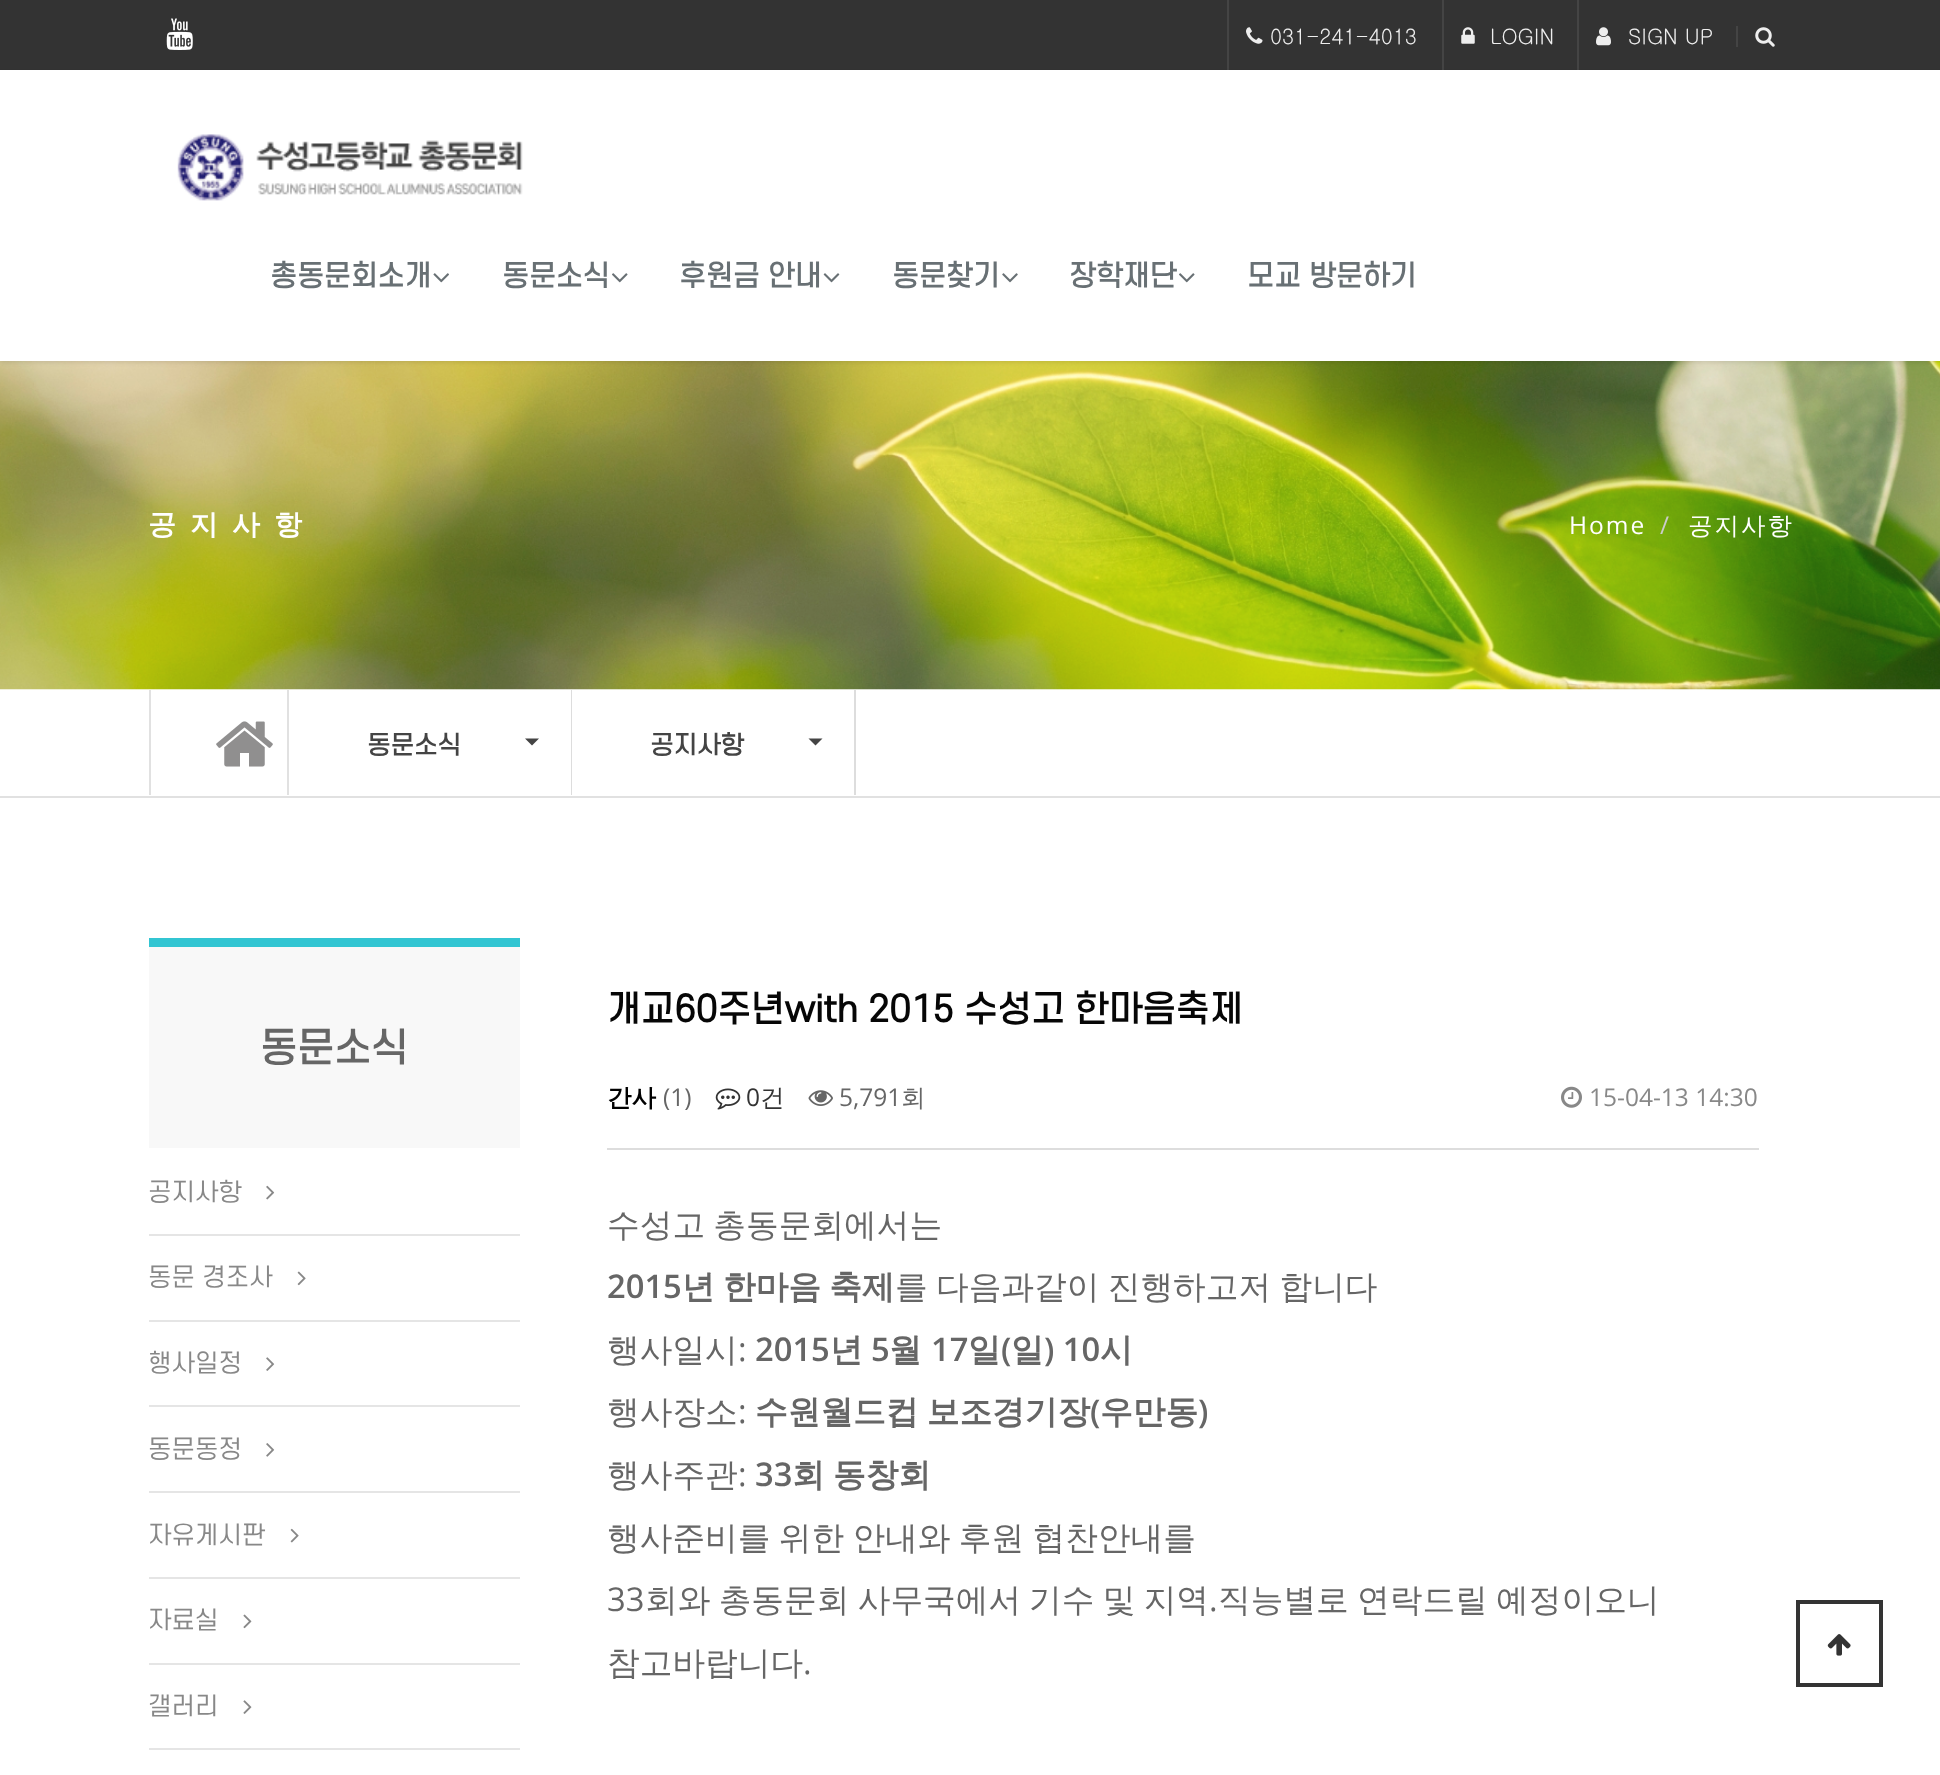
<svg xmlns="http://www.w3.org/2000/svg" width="1940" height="1775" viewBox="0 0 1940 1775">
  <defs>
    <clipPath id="clip1"><path d="M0 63H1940V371H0ZM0 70H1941V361H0Z" clip-rule="evenodd"/></clipPath>
    <filter id="blur1" x="-50%" y="-200%" width="200%" height="500%"><feGaussianBlur stdDeviation="2.5"/></filter>
  </defs>
  <rect width="100%" height="100%" fill="#ffffff"/>
  <rect x="0" y="0" width="1940" height="70" fill="#333333"/>
  <image x="166" y="18" width="27" height="32" href="img1.png"/>
  <rect x="1227" y="0" width="2" height="70" fill="#444444"/>
  <image x="1246" y="27" width="17" height="17" href="img2.png"/>
  <text x="1270" y="44" font-family="Gulim" font-size="21" fill="#eeeeee">031-241-4013</text>
  <rect x="1442" y="0" width="2" height="70" fill="#444444"/>
  <image x="1461" y="27" width="14" height="17" href="img3.png"/>
  <text x="1490" y="44" font-family="Gulim" font-size="21" fill="#eeeeee">LOGIN</text>
  <rect x="1577" y="0" width="2" height="70" fill="#444444"/>
  <image x="1596" y="27" width="15" height="19" href="img4.png"/>
  <text x="1628" y="44" font-family="Gulim" font-size="21" fill="#eeeeee">SIGN UP</text>
  <rect x="1736" y="26" width="2" height="21" fill="#444444"/>
  <image x="1755" y="27" width="20" height="20" href="img5.png"/>
  <image x="0" y="360" width="1940" height="330" href="img11.png"/>
  <g clip-path="url(#clip1)">
    <rect x="0" y="72" width="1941" height="290" fill="#000000" fill-opacity="0.12" filter="url(#blur1)"/>
  </g>
  <rect x="0" y="360" width="1940" height="1" fill="#ffffff" fill-opacity="0.98"/>
  <image x="177" y="134" width="346" height="67" href="img6.png"/>
  <text x="270" y="286" font-family="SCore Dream" font-size="28" font-weight="bold" fill="#687074">총동문회소개</text>
  <image x="433" y="273" width="16" height="10" href="img7.png"/>
  <text x="502" y="286" font-family="SCore Dream" font-size="28" font-weight="bold" fill="#687074">동문소식</text>
  <image x="612" y="273" width="16" height="10" href="img8.png"/>
  <text x="679" y="286" font-family="SCore Dream" font-size="28" font-weight="bold" fill="#687074">후원금 안내</text>
  <image x="823" y="273" width="17" height="10" href="img9.png"/>
  <text x="892" y="286" font-family="SCore Dream" font-size="28" font-weight="bold" fill="#687074">동문찾기</text>
  <image x="1002" y="273" width="16" height="10" href="img10.png"/>
  <text x="1069" y="286" font-family="SCore Dream" font-size="28" font-weight="bold" fill="#687074">장학재단</text>
  <image x="1179" y="273" width="16" height="10" href="img8.png"/>
  <text x="1247" y="286" font-family="SCore Dream" font-size="28" font-weight="bold" fill="#687074">모교 방문하기</text>
  <text x="148" y="534" font-family="WenQuanYi Zen Hei" font-size="28" font-weight="bold" letter-spacing="14" fill="#ffffff">공지사항</text>
  <text x="1569" y="534" font-family="Open Sans" font-size="24.5" letter-spacing="2" fill="#ffffff">Home</text>
  <text x="1660" y="534" font-family="Open Sans" font-size="24.5" letter-spacing="2" fill="#cccccc">/</text>
  <text x="1688" y="534" font-family="WenQuanYi Zen Hei" font-size="24.5" font-weight="500" letter-spacing="2" fill="#ffffff">공지사항</text>
  <rect x="0" y="796" width="1940" height="2" fill="#e1e1e1"/>
  <rect x="287" y="690" width="2" height="105" fill="#e1e1e1"/>
  <rect x="149" y="690" width="2" height="105" fill="#e1e1e1"/>
  <image x="216" y="721" width="57" height="46" href="img12.png"/>
  <rect x="571" y="690" width="1" height="105" fill="#dddddd"/>
  <text x="367" y="754" font-family="SCore Dream" font-size="24.5" font-weight="bold" fill="#444444">동문소식</text>
  <path d="M525 738.5H539L532 745.5Z" fill="#444444"/>
  <rect x="854" y="690" width="2" height="105" fill="#dddddd"/>
  <text x="650" y="754" font-family="SCore Dream" font-size="24.5" font-weight="bold" fill="#444444">공지사항</text>
  <path d="M808.5 738.5H822.5L815.5 745.5Z" fill="#444444"/>
  <rect x="149" y="947" width="371" height="201" fill="#f8f8f8"/>
  <rect x="149" y="938" width="371" height="9" fill="#32c5d2"/>
  <text x="260" y="1062" font-family="SCore Dream" font-size="38.5" font-weight="bold" fill="#666666">동문소식</text>
  <rect x="149" y="1234" width="371" height="2" fill="#e5e5e5"/>
  <text x="148" y="1201" font-family="SCore Dream" font-size="24.5" fill="#888888">공지사항</text>
  <image x="266" y="1185" width="9" height="15" href="img13.png"/>
  <rect x="149" y="1320" width="371" height="2" fill="#e5e5e5"/>
  <text x="148" y="1286" font-family="SCore Dream" font-size="24.5" fill="#888888">동문 경조사</text>
  <image x="297" y="1271" width="9" height="15" href="img14.png"/>
  <rect x="149" y="1405" width="371" height="2" fill="#e5e5e5"/>
  <text x="148" y="1372" font-family="SCore Dream" font-size="24.5" fill="#888888">행사일정</text>
  <image x="266" y="1357" width="9" height="14" href="img15.png"/>
  <rect x="149" y="1491" width="371" height="2" fill="#e5e5e5"/>
  <text x="148" y="1458" font-family="SCore Dream" font-size="24.5" fill="#888888">동문동정</text>
  <image x="266" y="1443" width="9" height="14" href="img16.png"/>
  <rect x="149" y="1577" width="371" height="2" fill="#e5e5e5"/>
  <text x="148" y="1544" font-family="SCore Dream" font-size="24.5" fill="#888888">자유게시판</text>
  <image x="290" y="1528" width="9" height="15" href="img17.png"/>
  <rect x="149" y="1663" width="371" height="2" fill="#e5e5e5"/>
  <text x="148" y="1629" font-family="SCore Dream" font-size="24.5" fill="#888888">자료실</text>
  <image x="243" y="1614" width="9" height="15" href="img18.png"/>
  <rect x="149" y="1748" width="371" height="2" fill="#e5e5e5"/>
  <text x="148" y="1715" font-family="SCore Dream" font-size="24.5" fill="#888888">갤러리</text>
  <image x="243" y="1700" width="9" height="14" href="img19.png"/>
  <text x="607" y="1022" font-family="SCore Dream" font-size="35" font-weight="bold" fill="#060606">개교60주년with 2015 수성고 한마음축제</text>
  <rect x="607" y="1148" width="1152" height="2" fill="#dddddd"/>
  <text x="607" y="1106" font-family="WenQuanYi Zen Hei" font-size="24.5" font-weight="bold" fill="#000000">간사</text>
  <text x="663" y="1106" font-family="Open Sans" font-size="24.5" fill="#666666">(1)</text>
  <image x="715" y="1088" width="26" height="22" href="img20.png"/>
  <text x="746" y="1106" font-family="Open Sans" font-size="24.5" fill="#333333">0</text>
  <text x="760" y="1106" font-family="WenQuanYi Zen Hei" font-size="24.5" font-weight="500" fill="#333333">건</text>
  <image x="808" y="1090" width="25" height="16" href="img21.png"/>
  <text x="839" y="1106" font-family="Open Sans" font-size="24.5" fill="#666666">5,791</text>
  <text x="901" y="1106" font-family="WenQuanYi Zen Hei" font-size="24.5" font-weight="500" fill="#666666">회</text>
  <image x="1561" y="1086" width="21" height="22" href="img22.png"/>
  <text x="1589" y="1106" font-family="Open Sans" font-size="24.5" fill="#888888">15-04-13 14:30</text>
  <text x="607" y="1236" word-spacing="-1.5" font-family="WenQuanYi Zen Hei" font-size="32.7" font-weight="500" fill="#666666">수성고 총동문회에서는</text>
  <text x="607" y="1298" font-family="Open Sans" font-size="32.7" font-weight="600" fill="#666666">2015</text>
  <text x="682" y="1298" word-spacing="-1.5" font-family="WenQuanYi Zen Hei" font-size="32.7" font-weight="bold" fill="#666666">년 한마음 축제</text>
  <text x="895" y="1298" word-spacing="-1.5" font-family="WenQuanYi Zen Hei" font-size="32.7" font-weight="500" fill="#666666">를 다음과같이 진행하고저 합니다</text>
  <text x="607" y="1361" font-family="WenQuanYi Zen Hei" font-size="32.7" font-weight="500" fill="#666666">행사일시</text>
  <text x="738" y="1361" font-family="Open Sans" font-size="32.7" fill="#666666">:</text>
  <text x="755" y="1361" font-family="Open Sans" font-size="32.7" font-weight="600" fill="#666666">2015</text>
  <text x="830" y="1361" font-family="WenQuanYi Zen Hei" font-size="32.7" font-weight="bold" fill="#666666">년</text>
  <text x="871" y="1361" font-family="Open Sans" font-size="32.7" font-weight="600" fill="#666666">5</text>
  <text x="889" y="1361" font-family="WenQuanYi Zen Hei" font-size="32.7" font-weight="bold" fill="#666666">월</text>
  <text x="931" y="1361" font-family="Open Sans" font-size="32.7" font-weight="600" fill="#666666">17</text>
  <text x="968" y="1361" font-family="WenQuanYi Zen Hei" font-size="32.7" font-weight="bold" fill="#666666">일</text>
  <text x="1001" y="1361" font-family="Open Sans" font-size="32.7" font-weight="600" fill="#666666">(</text>
  <text x="1011" y="1361" font-family="WenQuanYi Zen Hei" font-size="32.7" font-weight="bold" fill="#666666">일</text>
  <text x="1044" y="1361" font-family="Open Sans" font-size="32.7" font-weight="600" fill="#666666">) 10</text>
  <text x="1100" y="1361" font-family="WenQuanYi Zen Hei" font-size="32.7" font-weight="bold" fill="#666666">시</text>
  <text x="607" y="1423" font-family="WenQuanYi Zen Hei" font-size="32.7" font-weight="500" fill="#666666">행사장소</text>
  <text x="738" y="1423" font-family="Open Sans" font-size="32.7" fill="#666666">:</text>
  <text x="755" y="1423" word-spacing="-1.5" font-family="WenQuanYi Zen Hei" font-size="32.7" font-weight="bold" fill="#666666">수원월드컵 보조경기장</text>
  <text x="1090" y="1423" font-family="Open Sans" font-size="32.7" font-weight="600" fill="#666666">(</text>
  <text x="1100" y="1423" font-family="WenQuanYi Zen Hei" font-size="32.7" font-weight="bold" fill="#666666">우만동</text>
  <text x="1198" y="1423" font-family="Open Sans" font-size="32.7" font-weight="600" fill="#666666">)</text>
  <text x="607" y="1486" font-family="WenQuanYi Zen Hei" font-size="32.7" font-weight="500" fill="#666666">행사주관</text>
  <text x="738" y="1486" font-family="Open Sans" font-size="32.7" fill="#666666">:</text>
  <text x="755" y="1486" font-family="Open Sans" font-size="32.7" font-weight="600" fill="#666666">33</text>
  <text x="792" y="1486" word-spacing="-1.5" font-family="WenQuanYi Zen Hei" font-size="32.7" font-weight="bold" fill="#666666">회 동창회</text>
  <text x="607" y="1549" word-spacing="-1.5" font-family="WenQuanYi Zen Hei" font-size="32.7" font-weight="500" fill="#666666">행사준비를 위한 안내와 후원 협찬안내를</text>
  <text x="607" y="1611" font-family="Open Sans" font-size="32.7" fill="#666666">33</text>
  <text x="645" y="1611" word-spacing="-1.5" font-family="WenQuanYi Zen Hei" font-size="32.7" font-weight="500" fill="#666666">회와 총동문회 사무국에서</text>
  <text x="1029" y="1611" word-spacing="-1.5" font-family="WenQuanYi Zen Hei" font-size="32.7" font-weight="500" fill="#666666">기수 및 지역</text>
  <text x="1209" y="1611" font-family="Open Sans" font-size="32.7" fill="#666666">.</text>
  <text x="1218" y="1611" word-spacing="-1.5" font-family="WenQuanYi Zen Hei" font-size="32.7" font-weight="500" fill="#666666">직능별로 연락드릴 예정이오니</text>
  <text x="607" y="1674" font-family="WenQuanYi Zen Hei" font-size="32.7" font-weight="500" fill="#666666">참고바랍니다</text>
  <text x="803" y="1674" font-family="Open Sans" font-size="32.7" fill="#666666">.</text>
  <rect x="1798" y="1602" width="83" height="83" fill="none" stroke="#333333" stroke-width="4"/>
  <image x="1827" y="1634" width="24" height="22" href="img23.png"/>
</svg>
